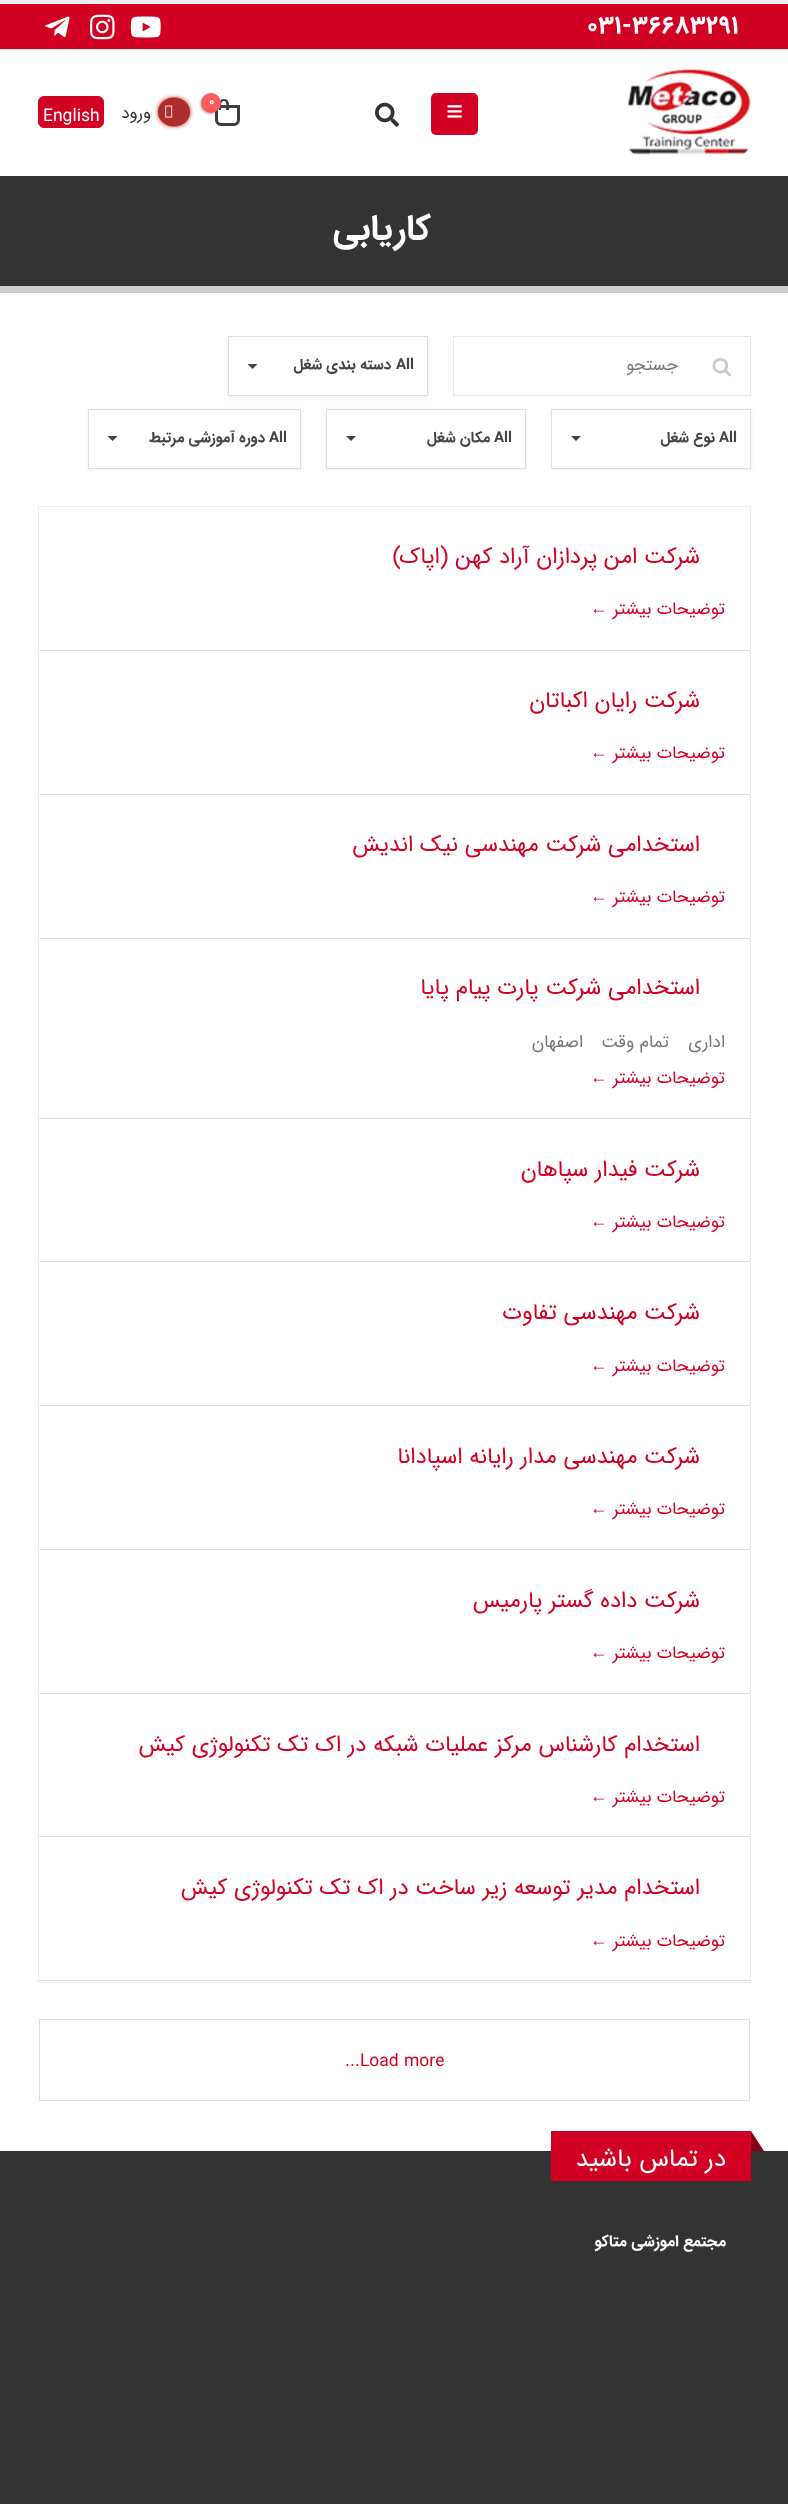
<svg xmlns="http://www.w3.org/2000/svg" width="788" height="2504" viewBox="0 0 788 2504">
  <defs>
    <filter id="blur1" x="-50%" y="-200%" width="200%" height="500%"><feGaussianBlur stdDeviation="1"/></filter>
    <filter id="blur2" x="-50%" y="-200%" width="200%" height="500%"><feGaussianBlur stdDeviation="2"/></filter>
    <filter id="blur3" x="-50%" y="-200%" width="200%" height="500%"><feGaussianBlur stdDeviation="2.5"/></filter>
  </defs>
  <rect width="100%" height="100%" fill="#ffffff"/>
  <rect x="0" y="0" width="788" height="4" fill="#ededed"/>
  <rect x="0" y="4" width="788" height="45" fill="#d20022"/>
  <rect x="0" y="49" width="788" height="1" fill="#ededed"/>
  <text x="587" y="33" font-family="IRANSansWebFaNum" font-size="24.75" font-weight="bold" letter-spacing="0.6" fill="#ffffff">031-36683291</text>
  <image x="130" y="16" width="31" height="22" href="img1.png"/>
  <image x="90" y="14" width="25" height="26" href="img2.png"/>
  <image x="45" y="16" width="25" height="21" href="img3.png"/>
  <image x="627" y="68" width="124" height="87" href="img4.png"/>
  <rect x="431" y="93" width="47" height="42" rx="5" fill="#d20022"/>
  <image x="447" y="105" width="15" height="13" href="img5.png"/>
  <image x="375" y="102" width="24" height="25" href="img6.png"/>
  <path d="M216.5 106.5H238.5V120C238.5 122.5 236.5 124.5 234 124.5H221C218.5 124.5 216.5 122.5 216.5 120Z" fill="none" stroke="#3d3d3d" stroke-width="3"/>
  <path d="M224 99C230 99 229 106 229 110H219C219 106 217.5 99 224 99ZM224 101C227.5 101 226 107.5 226 110H221C221 107.5 220 101 224 101Z" fill="#3d3d3d" fill-rule="evenodd"/>
  <rect x="200" y="94" width="20" height="20" rx="10" fill="#000000" fill-opacity="0.3" filter="url(#blur1)"/>
  <circle cx="211" cy="103" r="10" fill="#ff5b5b"/>
  <text x="209" y="105" font-family="IRANSansWebFaNum" font-size="12" font-weight="bold" fill="#ffffff">0</text>
  <rect x="158" y="98" width="32" height="28" rx="14" fill="#b02b2c" filter="url(#blur2)"/>
  <ellipse cx="174" cy="112" rx="16" ry="14.5" fill="#b02b2c"/>
  <image x="165" y="105" width="8" height="13" href="img7.png"/>
  <text x="151" y="118" font-family="IRANSansWebFaNum" font-size="17" direction="rtl" fill="#333333">ورود</text>
  <rect x="38.5" y="96.5" width="65" height="31" rx="5.5" fill="#d20022" stroke="#d20022"/>
  <text x="43" y="121" font-family="IRANSansWebFaNum" font-size="17.5" fill="#ffffff">English</text>
  <rect x="0" y="176" width="788" height="110" fill="#333333"/>
  <rect x="0" y="286" width="788" height="7" fill="#cccccc"/>
  <text x="431" y="239" font-family="IRANSansWebFaNum" font-size="35" font-weight="bold" letter-spacing="-1.75" direction="rtl" fill="#ffffff">کاریابی</text>
  <rect x="453.5" y="336.5" width="297" height="59" fill="none" stroke="#e8e8e8"/>
  <image x="712" y="357" width="19" height="20" href="img8.png"/>
  <text x="678" y="370" font-family="IRANSansWebFaNum" font-size="17" direction="rtl" fill="#777777">جستجو</text>
  <rect x="228" y="338" width="200" height="60" fill="#000000" fill-opacity="0.05" filter="url(#blur3)"/>
  <rect x="228.5" y="336.5" width="199" height="59" fill="#ffffff" stroke="#dddfe3"/>
  <text x="396" y="369" font-family="IRANSansWebFaNum" font-size="15" font-weight="bold" fill="#444444">All</text>
  <text x="391" y="369" font-family="IRANSansWebFaNum" font-size="15" font-weight="bold" direction="rtl" fill="#444444">دسته بندی شغل</text>
  <path d="M247.5 364H257.5L252.5 369Z" fill="#444444"/>
  <rect x="551" y="410" width="200" height="60" fill="#000000" fill-opacity="0.05" filter="url(#blur3)"/>
  <rect x="551.5" y="409.5" width="199" height="59" fill="#ffffff" stroke="#dddfe3"/>
  <text x="719" y="442" font-family="IRANSansWebFaNum" font-size="15" font-weight="bold" fill="#444444">All</text>
  <text x="715" y="442" font-family="IRANSansWebFaNum" font-size="15" font-weight="bold" direction="rtl" fill="#444444">نوع شغل</text>
  <path d="M571 436H581L576 441Z" fill="#444444"/>
  <rect x="326" y="410" width="200" height="60" fill="#000000" fill-opacity="0.05" filter="url(#blur3)"/>
  <rect x="326.5" y="409.5" width="199" height="59" fill="#ffffff" stroke="#dddfe3"/>
  <text x="494" y="442" font-family="IRANSansWebFaNum" font-size="15" font-weight="bold" fill="#444444">All</text>
  <text x="490" y="442" font-family="IRANSansWebFaNum" font-size="15" font-weight="bold" direction="rtl" fill="#444444">مکان شغل</text>
  <path d="M346 436H356L351 441Z" fill="#444444"/>
  <rect x="88" y="410" width="213" height="60" fill="#000000" fill-opacity="0.05" filter="url(#blur3)"/>
  <rect x="88.5" y="409.5" width="212" height="59" fill="#ffffff" stroke="#dddfe3"/>
  <text x="269" y="442" font-family="IRANSansWebFaNum" font-size="15" font-weight="bold" fill="#444444">All</text>
  <text x="265" y="442" font-family="IRANSansWebFaNum" font-size="15" font-weight="bold" direction="rtl" fill="#444444">دوره آموزشی مرتبط</text>
  <path d="M107.5 436H117.5L112.5 441Z" fill="#444444"/>
  <rect x="38.5" y="506.5" width="712" height="1476" fill="none" stroke="#ededed"/>
  <rect x="39" y="650" width="711" height="1" fill="#dedede"/>
  <text x="700" y="563" font-family="IRANSansWebFaNum" font-size="22.5" direction="rtl" fill="#d20022">شرکت امن پردازان آراد کهن (اپاک)</text>
  <text x="725" y="614" font-family="IRANSansWebFaNum" font-size="17.5" direction="rtl" fill="#d20022">توضیحات بیشتر</text>
  <text x="590" y="614" font-family="Liberation Sans" font-size="17.5" fill="#d20022">←</text>
  <rect x="39" y="794" width="711" height="1" fill="#dedede"/>
  <text x="700" y="707" font-family="IRANSansWebFaNum" font-size="22.5" direction="rtl" fill="#d20022">شرکت رایان اکباتان</text>
  <text x="725" y="758" font-family="IRANSansWebFaNum" font-size="17.5" direction="rtl" fill="#d20022">توضیحات بیشتر</text>
  <text x="590" y="758" font-family="Liberation Sans" font-size="17.5" fill="#d20022">←</text>
  <rect x="39" y="938" width="711" height="1" fill="#dedede"/>
  <text x="700" y="851" font-family="IRANSansWebFaNum" font-size="22.5" direction="rtl" fill="#d20022">استخدامی شرکت مهندسی نیک اندیش</text>
  <text x="725" y="902" font-family="IRANSansWebFaNum" font-size="17.5" direction="rtl" fill="#d20022">توضیحات بیشتر</text>
  <text x="590" y="902" font-family="Liberation Sans" font-size="17.5" fill="#d20022">←</text>
  <rect x="39" y="1118" width="711" height="1" fill="#dedede"/>
  <text x="700" y="994" font-family="IRANSansWebFaNum" font-size="22.5" direction="rtl" fill="#d20022">استخدامی شرکت پارت پیام پایا</text>
  <text x="725" y="1047" font-family="IRANSansWebFaNum" font-size="17.5" direction="rtl" fill="#777777">اداری</text>
  <text x="669" y="1047" font-family="IRANSansWebFaNum" font-size="17.5" direction="rtl" fill="#777777">تمام وقت</text>
  <text x="583" y="1047" font-family="IRANSansWebFaNum" font-size="17.5" direction="rtl" fill="#777777">اصفهان</text>
  <text x="725" y="1083" font-family="IRANSansWebFaNum" font-size="17.5" direction="rtl" fill="#d20022">توضیحات بیشتر</text>
  <text x="590" y="1083" font-family="Liberation Sans" font-size="17.5" fill="#d20022">←</text>
  <rect x="39" y="1261" width="711" height="1" fill="#dedede"/>
  <text x="700" y="1176" font-family="IRANSansWebFaNum" font-size="22.5" direction="rtl" fill="#d20022">شرکت فیدار سپاهان</text>
  <text x="725" y="1227" font-family="IRANSansWebFaNum" font-size="17.5" direction="rtl" fill="#d20022">توضیحات بیشتر</text>
  <text x="590" y="1227" font-family="Liberation Sans" font-size="17.5" fill="#d20022">←</text>
  <rect x="39" y="1405" width="711" height="1" fill="#dedede"/>
  <text x="700" y="1319" font-family="IRANSansWebFaNum" font-size="22.5" direction="rtl" fill="#d20022">شرکت مهندسی تفاوت</text>
  <text x="725" y="1371" font-family="IRANSansWebFaNum" font-size="17.5" direction="rtl" fill="#d20022">توضیحات بیشتر</text>
  <text x="590" y="1371" font-family="Liberation Sans" font-size="17.5" fill="#d20022">←</text>
  <rect x="39" y="1549" width="711" height="1" fill="#dedede"/>
  <text x="700" y="1463" font-family="IRANSansWebFaNum" font-size="22.5" direction="rtl" fill="#d20022">شرکت مهندسی مدار رایانه اسپادانا</text>
  <text x="725" y="1514" font-family="IRANSansWebFaNum" font-size="17.5" direction="rtl" fill="#d20022">توضیحات بیشتر</text>
  <text x="590" y="1514" font-family="Liberation Sans" font-size="17.5" fill="#d20022">←</text>
  <rect x="39" y="1693" width="711" height="1" fill="#dedede"/>
  <text x="700" y="1607" font-family="IRANSansWebFaNum" font-size="22.5" direction="rtl" fill="#d20022">شرکت داده گستر پارمیس</text>
  <text x="725" y="1658" font-family="IRANSansWebFaNum" font-size="17.5" direction="rtl" fill="#d20022">توضیحات بیشتر</text>
  <text x="590" y="1658" font-family="Liberation Sans" font-size="17.5" fill="#d20022">←</text>
  <rect x="39" y="1836" width="711" height="1" fill="#dedede"/>
  <text x="700" y="1751" font-family="IRANSansWebFaNum" font-size="22.5" direction="rtl" fill="#d20022">استخدام کارشناس مرکز عملیات شبکه در اک تک تکنولوژی کیش</text>
  <text x="725" y="1802" font-family="IRANSansWebFaNum" font-size="17.5" direction="rtl" fill="#d20022">توضیحات بیشتر</text>
  <text x="590" y="1802" font-family="Liberation Sans" font-size="17.5" fill="#d20022">←</text>
  <rect x="39" y="1980" width="711" height="1" fill="#dedede"/>
  <text x="700" y="1894" font-family="IRANSansWebFaNum" font-size="22.5" direction="rtl" fill="#d20022">استخدام مدیر توسعه زیر ساخت در اک تک تکنولوژی کیش</text>
  <text x="725" y="1946" font-family="IRANSansWebFaNum" font-size="17.5" direction="rtl" fill="#d20022">توضیحات بیشتر</text>
  <text x="590" y="1946" font-family="Liberation Sans" font-size="17.5" fill="#d20022">←</text>
  <rect x="39.5" y="2019.5" width="710" height="81" fill="none" stroke="#dddfe3"/>
  <text x="345" y="2066" font-family="IRANSansWebFaNum" font-size="17.5" fill="#d20022">...Load more</text>
  <rect x="0" y="2151" width="788" height="353" fill="#333333"/>
  <rect x="551" y="2131" width="200" height="50" fill="#d20022"/>
  <path d="M751 2151V2131L764 2151Z" fill="#860016"/>
  <text x="726" y="2166" font-family="IRANSansWebFaNum" font-size="25.25" direction="rtl" fill="#ffffff">در تماس باشید</text>
  <text x="726" y="2246" font-family="IRANSansWebFaNum" font-size="15.75" font-weight="bold" direction="rtl" fill="#ffffff">مجتمع اموزشی متاکو</text>
</svg>
